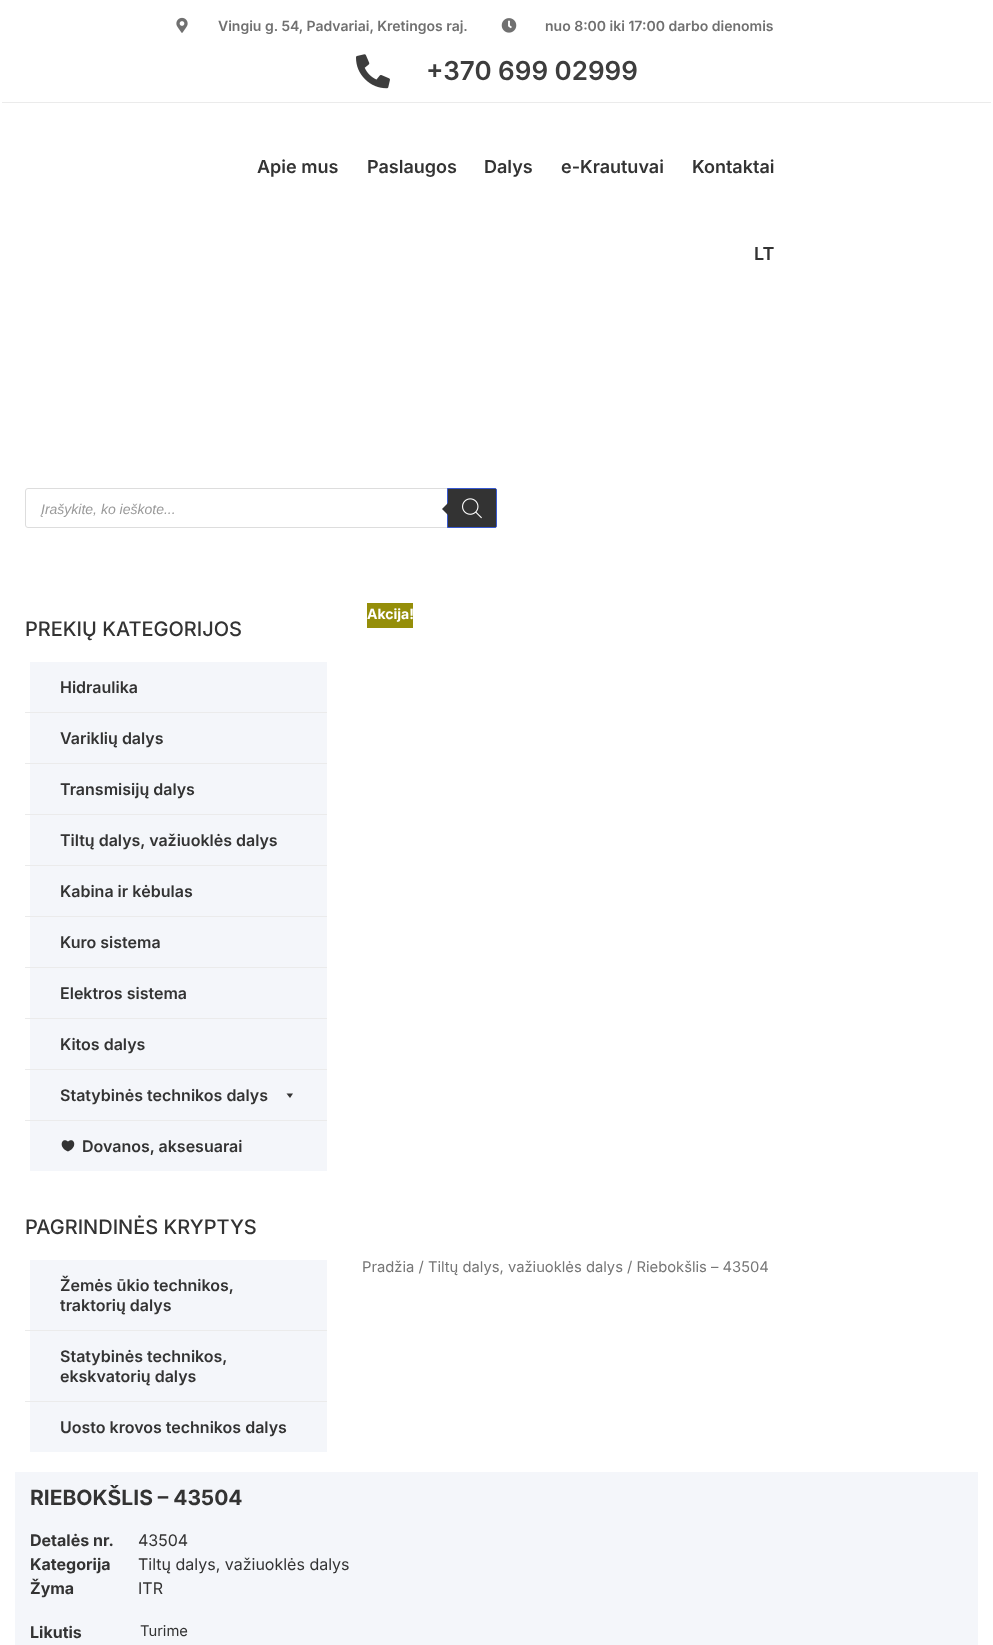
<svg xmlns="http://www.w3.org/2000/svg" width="993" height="1645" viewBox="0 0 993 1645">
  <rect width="100%" height="100%" fill="#ffffff"/>
  <image x="176" y="17" width="12" height="16" href="img1.png"/>
  <text x="218" y="31" font-family="Inter" font-size="14" font-weight="600" fill="#707070">Vingiu g. 54, Padvariai, Kretingos raj.</text>
  <image x="501" y="18" width="16" height="15" href="img2.png"/>
  <text x="545" y="31" font-family="Inter" font-size="14" font-weight="600" fill="#707070">nuo 8:00 iki 17:00 darbo dienomis</text>
  <image x="356" y="54" width="34" height="35" href="img3.png"/>
  <text x="426" y="80" font-family="Inter" font-size="26" font-weight="600" fill="#3d3d3d">+370 699 02999</text>
  <rect x="2" y="102" width="989" height="1" fill="#ebebeb"/>
  <text x="257" y="173" font-family="Inter" font-size="18" font-weight="600" fill="#333333">Apie mus</text>
  <text x="367" y="173" font-family="Inter" font-size="18" font-weight="600" fill="#333333">Paslaugos</text>
  <text x="484" y="173" font-family="Inter" font-size="18" font-weight="600" fill="#333333">Dalys</text>
  <text x="561" y="173" font-family="Inter" font-size="18" font-weight="600" fill="#333333">e-Krautuvai</text>
  <text x="692" y="173" font-family="Inter" font-size="18" font-weight="600" fill="#333333">Kontaktai</text>
  <text x="754" y="260" font-family="Inter" font-size="18" font-weight="600" fill="#333333">LT</text>
  <rect x="25.5" y="488.5" width="471" height="39" rx="2.5" fill="none" stroke="#dddddd"/>
  <text x="41" y="514" font-family="Liberation Sans" font-size="14" font-style="italic" fill="#999999">Įrašykite, ko ieškote...</text>
  <path d="M447.5 488.5H495C496 488.5 496.5 489 496.5 490V526C496.5 527 496 527.5 495 527.5H447.5Z" fill="#333333" stroke="#3859d0"/>
  <path d="M450 501V517L442 509Z" fill="#333333"/>
  <image x="462" y="498" width="20" height="21" href="img4.png"/>
  <text x="25" y="636" font-family="Inter" font-size="20" font-weight="500" fill="#333333">PREKIŲ KATEGORIJOS</text>
  <rect x="30" y="662" width="297" height="509" fill="#f4f6fa"/>
  <text x="60" y="693" font-family="Inter" font-size="16" font-weight="600" fill="#333333">Hidraulika</text>
  <rect x="25" y="712" width="302" height="1" fill="#ebebeb"/>
  <text x="60" y="744" font-family="Inter" font-size="16" font-weight="600" fill="#333333">Variklių dalys</text>
  <rect x="25" y="763" width="302" height="1" fill="#ebebeb"/>
  <text x="60" y="795" font-family="Inter" font-size="16" font-weight="600" fill="#333333">Transmisijų dalys</text>
  <rect x="25" y="814" width="302" height="1" fill="#ebebeb"/>
  <text x="60" y="846" font-family="Inter" font-size="16" font-weight="600" fill="#333333">Tiltų dalys, važiuoklės dalys</text>
  <rect x="25" y="865" width="302" height="1" fill="#ebebeb"/>
  <text x="60" y="897" font-family="Inter" font-size="16" font-weight="600" fill="#333333">Kabina ir kėbulas</text>
  <rect x="25" y="916" width="302" height="1" fill="#ebebeb"/>
  <text x="60" y="948" font-family="Inter" font-size="16" font-weight="600" fill="#333333">Kuro sistema</text>
  <rect x="25" y="967" width="302" height="1" fill="#ebebeb"/>
  <text x="60" y="999" font-family="Inter" font-size="16" font-weight="600" fill="#333333">Elektros sistema</text>
  <rect x="25" y="1018" width="302" height="1" fill="#ebebeb"/>
  <text x="60" y="1050" font-family="Inter" font-size="16" font-weight="600" fill="#333333">Kitos dalys</text>
  <rect x="25" y="1069" width="302" height="1" fill="#ebebeb"/>
  <text x="60" y="1101" font-family="Inter" font-size="16" font-weight="600" fill="#333333">Statybinės technikos dalys</text>
  <path d="M293 1093.5L290 1098L286.5 1093.5Z" fill="#333333"/>
  <rect x="25" y="1120" width="302" height="1" fill="#ebebeb"/>
  <path d="M68 1151.5C78.5 1147 74 1136.5 68 1141.5C62 1136.5 57.5 1147 68 1151.5Z" fill="#333333"/>
  <text x="82" y="1152" font-family="Inter" font-size="16" font-weight="600" fill="#333333">Dovanos, aksesuarai</text>
  <text x="25" y="1234" font-family="Inter" font-size="20" font-weight="500" fill="#333333">PAGRINDINĖS KRYPTYS</text>
  <rect x="30" y="1260" width="297" height="192" fill="#f4f6fa"/>
  <text x="60" y="1291" font-family="Inter" font-size="16" font-weight="600" fill="#333333">Žemės ūkio technikos,</text>
  <text x="60" y="1311" font-family="Inter" font-size="16" font-weight="600" fill="#333333">traktorių dalys</text>
  <rect x="25" y="1330" width="302" height="1" fill="#ebebeb"/>
  <text x="60" y="1362" font-family="Inter" font-size="16" font-weight="600" fill="#333333">Statybinės technikos,</text>
  <text x="60" y="1382" font-family="Inter" font-size="16" font-weight="600" fill="#333333">ekskvatorių dalys</text>
  <rect x="25" y="1401" width="302" height="1" fill="#ebebeb"/>
  <text x="60" y="1433" font-family="Inter" font-size="16" font-weight="600" fill="#333333">Uosto krovos technikos dalys</text>
  <rect x="367" y="603" width="46" height="25" fill="#958e09"/>
  <text x="367" y="619" font-family="Inter" font-size="14" font-weight="bold" fill="#ffffff">Akcija!</text>
  <text x="362" y="1272" font-family="Inter" font-size="14.75" fill="#767676">Pradžia / Tiltų dalys, važiuoklės dalys / Riebokšlis – 43504</text>
  <rect x="15" y="1472" width="963" height="173" fill="#f4f6fa"/>
  <text x="30" y="1505" font-family="Inter" font-size="21" font-weight="bold" fill="#333333">RIEBOKŠLIS – 43504</text>
  <text x="30" y="1546" font-family="Inter" font-size="16" font-weight="bold" fill="#333333">Detalės nr.</text>
  <text x="138" y="1546" font-family="Inter" font-size="16" fill="#333333">43504</text>
  <text x="30" y="1570" font-family="Inter" font-size="16" font-weight="bold" fill="#333333">Kategorija</text>
  <text x="138" y="1570" font-family="Inter" font-size="16" fill="#333333">Tiltų dalys, važiuoklės dalys</text>
  <text x="30" y="1594" font-family="Inter" font-size="16" font-weight="bold" fill="#333333">Žyma</text>
  <text x="138" y="1594" font-family="Inter" font-size="16" fill="#333333">ITR</text>
  <text x="30" y="1638" font-family="Inter" font-size="16" font-weight="bold" fill="#333333">Likutis</text>
  <text x="140" y="1636" font-family="Inter" font-size="14.75" fill="#333333">Turime</text>
</svg>
